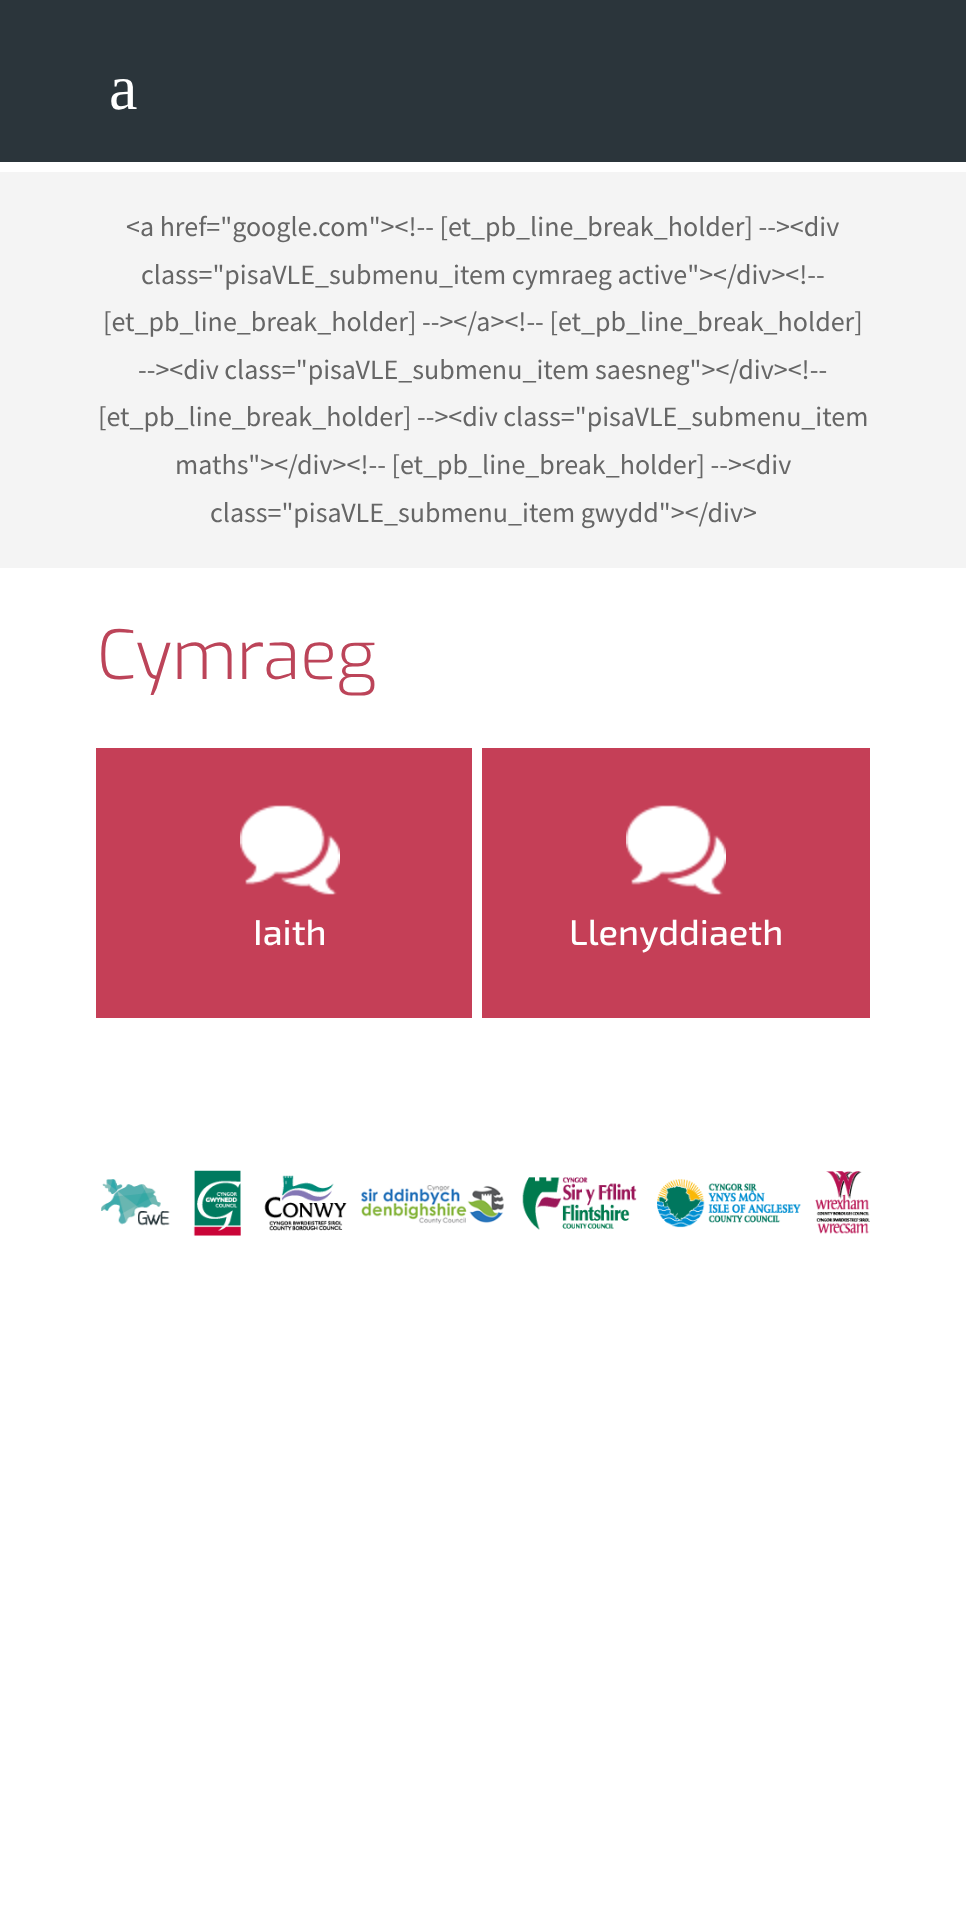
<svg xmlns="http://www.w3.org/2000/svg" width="966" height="1906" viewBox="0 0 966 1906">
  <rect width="100%" height="100%" fill="#ffffff"/>
  <rect x="0" y="0" width="966" height="162" fill="#2b353b"/>
  <text x="109" y="109" font-family="Liberation Serif" font-size="64" fill="#ffffff">a</text>
  <rect x="0" y="172" width="966" height="396" fill="#f4f4f4"/>
  <text x="126" y="236" font-family="Source Sans Pro" font-size="28" fill="#666666">&lt;a href="google.com"&gt;&lt;!-- [et_pb_line_break_holder] --&gt;&lt;div</text>
  <text x="141" y="284" font-family="Source Sans Pro" font-size="28" fill="#666666">class="pisaVLE_submenu_item cymraeg active"&gt;&lt;/div&gt;&lt;!--</text>
  <text x="103" y="331" font-family="Source Sans Pro" font-size="28" fill="#666666">[et_pb_line_break_holder] --&gt;&lt;/a&gt;&lt;!-- [et_pb_line_break_holder]</text>
  <text x="138" y="379" font-family="Source Sans Pro" font-size="28" fill="#666666">--&gt;&lt;div class="pisaVLE_submenu_item saesneg"&gt;&lt;/div&gt;&lt;!--</text>
  <text x="98" y="426" font-family="Source Sans Pro" font-size="28" fill="#666666">[et_pb_line_break_holder] --&gt;&lt;div class="pisaVLE_submenu_item</text>
  <text x="175" y="474" font-family="Source Sans Pro" font-size="28" fill="#666666">maths"&gt;&lt;/div&gt;&lt;!-- [et_pb_line_break_holder] --&gt;&lt;div</text>
  <text x="210" y="522" font-family="Source Sans Pro" font-size="28" fill="#666666">class="pisaVLE_submenu_item gwydd"&gt;&lt;/div&gt;</text>
  <text x="97" y="679" font-family="Exo" font-size="68" font-weight="300" fill="#bc4459">Cymraeg</text>
  <rect x="96" y="748" width="376" height="270" fill="#c53f57"/>
  <image x="240" y="805" width="100" height="90" href="img1.png"/>
  <text x="253" y="945" font-family="'Exo 2'" font-size="36" font-weight="500" fill="#ffffff">Iaith</text>
  <rect x="482" y="748" width="388" height="270" fill="#c53f57"/>
  <image x="626" y="805" width="100" height="90" href="img1.png"/>
  <text x="569" y="945" font-family="'Exo 2'" font-size="36" font-weight="500" fill="#ffffff">Llenyddiaeth</text>
  <image x="101" y="1170" width="769" height="66" href="img2.png"/>
</svg>
